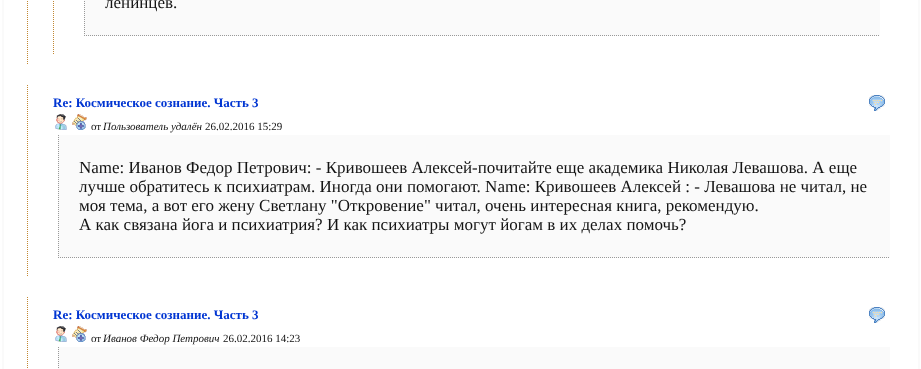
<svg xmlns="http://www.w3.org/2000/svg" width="921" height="369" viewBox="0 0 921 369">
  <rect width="100%" height="100%" fill="#ffffff"/>
  <rect x="3" y="-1" width="916" height="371" fill="none" stroke="#fafafa" stroke-width="2"/>
  <path d="M27.5-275V65M53.5-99V55" fill="none" stroke="#c18833" stroke-dasharray="1 1"/>
  <rect x="84" y="0" width="796" height="36" fill="#fafafa"/>
  <path d="M84 35.5H880" fill="none" stroke="#999999" stroke-dasharray="1 1"/>
  <path d="M84.5-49V36" fill="none" stroke="#999999" stroke-dasharray="1 1"/>
  <text x="105" y="8" font-family="Liberation Serif" font-size="17" fill="#131313">ленинцев.</text>
  <path d="M27.5 85V277" fill="none" stroke="#c18833" stroke-dasharray="1 1"/>
  <text x="53" y="107" font-family="Liberation Serif" font-size="13" font-weight="bold" fill="#0035d2">Re: Космическое сознание. Часть 3</text>
  <image x="869" y="95" width="16" height="16" href="img1.png"/>
  <image x="55" y="114" width="12" height="16" href="img2.png"/>
  <image x="72" y="114" width="15" height="16" href="img3.png"/>
  <text x="91" y="130" font-family="Liberation Serif" font-size="11" fill="#131313">от</text>
  <text x="103" y="130" font-family="Liberation Serif" font-size="11" font-style="italic" fill="#131313">Пользователь удалён</text>
  <text x="205" y="130" font-family="Liberation Serif" font-size="11" fill="#131313">26.02.2016 15:29</text>
  <rect x="58" y="135" width="832" height="123" fill="#fafafa"/>
  <path d="M58 257.5H890" fill="none" stroke="#999999" stroke-dasharray="1 1"/>
  <path d="M58.5 135V258" fill="none" stroke="#999999" stroke-dasharray="1 1"/>
  <text x="79" y="173" font-family="Liberation Serif" font-size="17" fill="#131313">Name: Иванов Федор Петрович: - Кривошеев Алексей-почитайте еще академика Николая Левашова. А еще</text>
  <text x="79" y="192" font-family="Liberation Serif" font-size="17" fill="#131313">лучше обратитесь к психиатрам. Иногда они помогают. Name: Кривошеев Алексей : - Левашова не читал, не</text>
  <text x="79" y="211" font-family="Liberation Serif" font-size="17" fill="#131313">моя тема, а вот его жену Светлану "Откровение" читал, очень интересная книга, рекомендую.</text>
  <text x="79" y="230" font-family="Liberation Serif" font-size="17" fill="#131313">А как связана йога и психиатрия? И как психиатры могут йогам в их делах помочь?</text>
  <path d="M27.5 297V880" fill="none" stroke="#c18833" stroke-dasharray="1 1"/>
  <text x="53" y="319" font-family="Liberation Serif" font-size="13" font-weight="bold" fill="#0035d2">Re: Космическое сознание. Часть 3</text>
  <image x="869" y="307" width="16" height="16" href="img1.png"/>
  <image x="55" y="326" width="12" height="16" href="img2.png"/>
  <image x="72" y="326" width="15" height="16" href="img3.png"/>
  <text x="91" y="342" font-family="Liberation Serif" font-size="11" fill="#131313">от</text>
  <text x="103" y="342" font-family="Liberation Serif" font-size="11" font-style="italic" fill="#131313">Иванов Федор Петрович</text>
  <text x="223" y="342" font-family="Liberation Serif" font-size="11" fill="#131313">26.02.2016 14:23</text>
  <rect x="58" y="347" width="832" height="22" fill="#fafafa"/>
  <path d="M58.5 347V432" fill="none" stroke="#999999" stroke-dasharray="1 1"/>
</svg>
